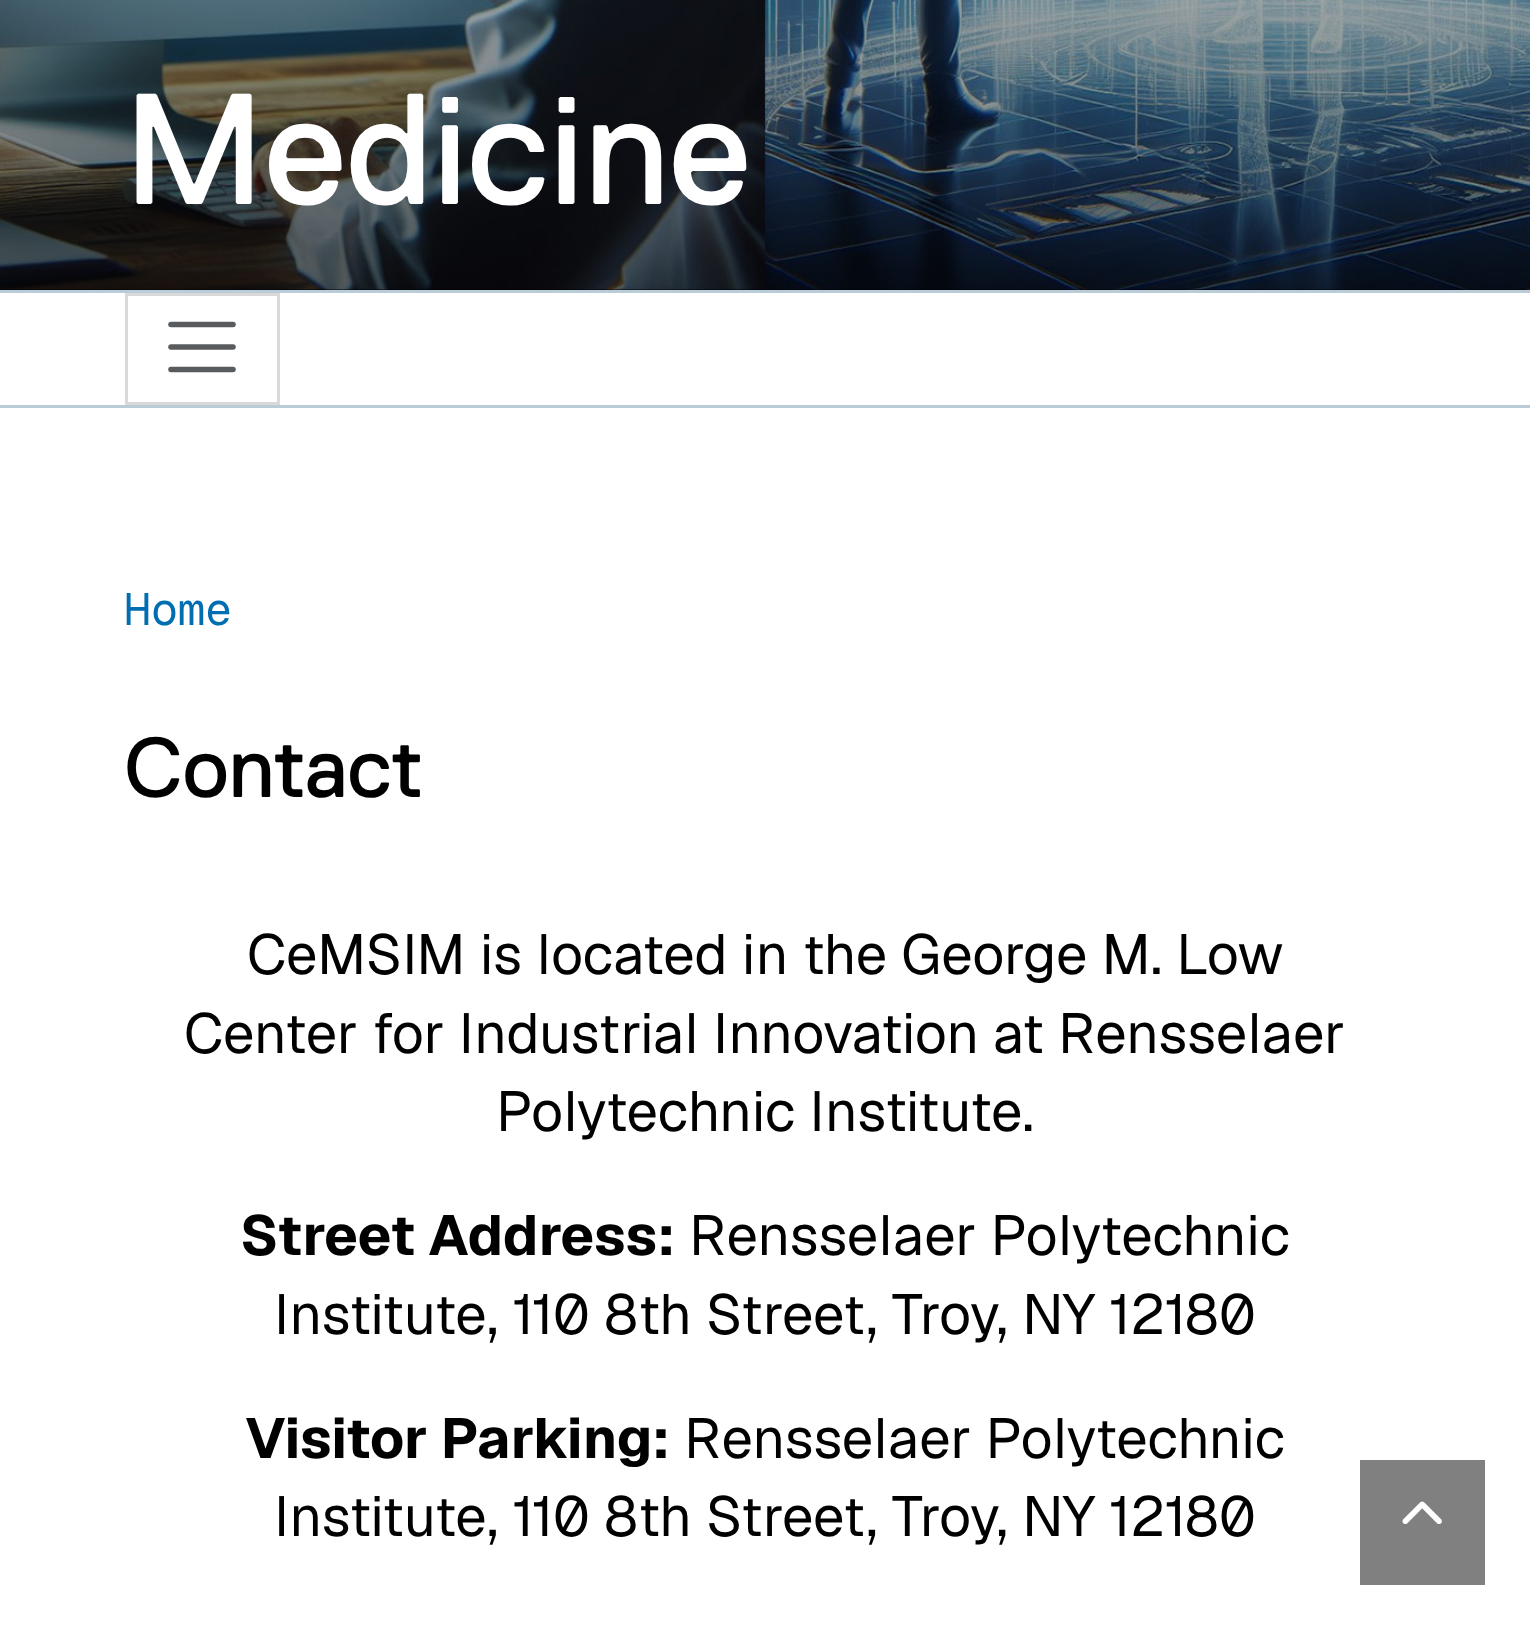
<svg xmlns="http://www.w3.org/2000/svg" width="1530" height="1635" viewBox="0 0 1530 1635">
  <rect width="100%" height="100%" fill="#ffffff"/>
  <rect x="0" y="289" width="1530" height="1" fill="#000000"/>
  <image x="0" y="0" width="1530" height="290" href="img1.png"/>
  <text x="124" y="204" font-family="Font" font-size="157.5" fill="#ffffff">Medicine</text>
  <rect x="0" y="290" width="1530" height="3" fill="#b9ccd8"/>
  <rect x="0" y="405" width="1530" height="3" fill="#b9ccd8"/>
  <rect x="126.5" y="294.5" width="152" height="109" fill="none" stroke="#d9d9d9" stroke-width="3"/>
  <path d="M171 324.5H233M171 347H233M171 369.5H233" fill="none" stroke="#595c5f" stroke-width="5.6" stroke-linecap="round"/>
  <text x="124" y="625" font-family="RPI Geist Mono" font-size="45" fill="#006eb0">Home</text>
  <text x="124" y="797" font-family="Font" font-size="85" fill="#000000">Contact</text>
  <text x="247" y="974" font-family="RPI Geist" font-size="56.25" fill="#000000">CeMSIM is located in the George M. Low</text>
  <text x="184" y="1053" font-family="RPI Geist" font-size="56.25" fill="#000000">Center for Industrial Innovation at Rensselaer</text>
  <text x="496" y="1131" font-family="RPI Geist" font-size="56.25" fill="#000000">Polytechnic Institute.</text>
  <text x="240" y="1255" font-family="RPI Geist" font-size="56.25" font-weight="bold" fill="#000000">Street Address:</text>
  <text x="689" y="1255" font-family="RPI Geist" font-size="56.25" fill="#000000">Rensselaer Polytechnic</text>
  <text x="274" y="1334" font-family="RPI Geist" font-size="56.25" fill="#000000">Institute, 110 8th Street, Troy, NY 12180</text>
  <text x="245" y="1458" font-family="RPI Geist" font-size="56.25" font-weight="bold" fill="#000000">Visitor Parking:</text>
  <text x="684" y="1458" font-family="RPI Geist" font-size="56.25" fill="#000000">Rensselaer Polytechnic</text>
  <text x="274" y="1536" font-family="RPI Geist" font-size="56.25" fill="#000000">Institute, 110 8th Street, Troy, NY 12180</text>
  <rect x="1360" y="1460" width="125" height="125" fill="#808080"/>
  <image x="1402" y="1501" width="40" height="23" href="img2.png"/>
</svg>
